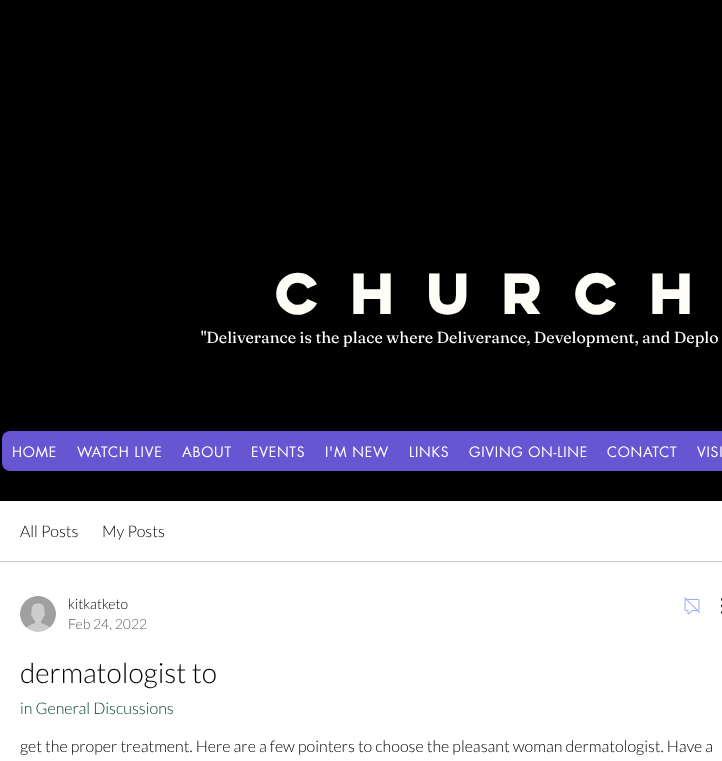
<svg xmlns="http://www.w3.org/2000/svg" width="722" height="761" viewBox="0 0 722 761">
  <rect width="100%" height="100%" fill="#000000"/>
  <text x="275" y="314" font-family="'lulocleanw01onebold'" font-size="52" font-weight="bold" letter-spacing="20.75" fill="#fffdf7">CHURCH</text>
  <text x="201" y="343" font-family="Fraunces" font-size="16" fill="#ffffff">"Deliverance is the place where Deliverance, Development, and Deplo</text>
  <rect x="2" y="431" width="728" height="40" rx="8" fill="#6755d1"/>
  <text x="12" y="457" font-family="futura" font-size="14" letter-spacing="0.75" fill="#ffffff">HOME</text>
  <text x="77" y="457" font-family="futura" font-size="14" letter-spacing="0.75" fill="#ffffff">WATCH LIVE</text>
  <text x="182" y="457" font-family="futura" font-size="14" letter-spacing="0.75" fill="#ffffff">ABOUT</text>
  <text x="251" y="457" font-family="futura" font-size="14" letter-spacing="0.75" fill="#ffffff">EVENTS</text>
  <text x="325" y="457" font-family="futura" font-size="14" letter-spacing="0.75" fill="#ffffff">I'M NEW</text>
  <text x="409" y="457" font-family="futura" font-size="14" letter-spacing="0.75" fill="#ffffff">LINKS</text>
  <text x="469" y="457" font-family="futura" font-size="14" letter-spacing="0.75" fill="#ffffff">GIVING ON-LINE</text>
  <text x="607" y="457" font-family="futura" font-size="14" letter-spacing="0.75" fill="#ffffff">CONATCT</text>
  <text x="697" y="457" font-family="futura" font-size="14" letter-spacing="0.75" fill="#ffffff">VISI</text>
  <rect x="0" y="501" width="722" height="260" fill="#ffffff"/>
  <rect x="0" y="561" width="722" height="1" fill="#cccccc"/>
  <text x="20" y="537" font-family="Lato" font-size="16" font-weight="300" fill="#000000">All Posts</text>
  <text x="102" y="537" font-family="Lato" font-size="16" font-weight="300" fill="#000000">My Posts</text>
  <image x="20" y="596" width="36" height="36" href="img1.png"/>
  <text x="68" y="609" font-family="Lato" font-size="14" font-weight="300" fill="#000000">kitkatketo</text>
  <text x="68" y="629" font-family="Lato" font-size="14" font-weight="300" fill="#5c5c5c">Feb 24, 2022</text>
  <image x="684" y="597" width="16" height="18" href="img2.png"/>
  <image x="721" y="598" width="1" height="16" href="img3.png"/>
  <text x="20" y="683" font-family="Lato" font-size="28" font-weight="300" fill="#000000">dermatologist to</text>
  <text x="20" y="714" font-family="Lato" font-size="16" font-weight="300" fill="#014235">in General Discussions</text>
  <text x="20" y="752" font-family="Lato" font-size="16" font-weight="300" fill="#000000">get the proper treatment. Here are a few pointers to choose the pleasant woman dermatologist. Have a</text>
</svg>
